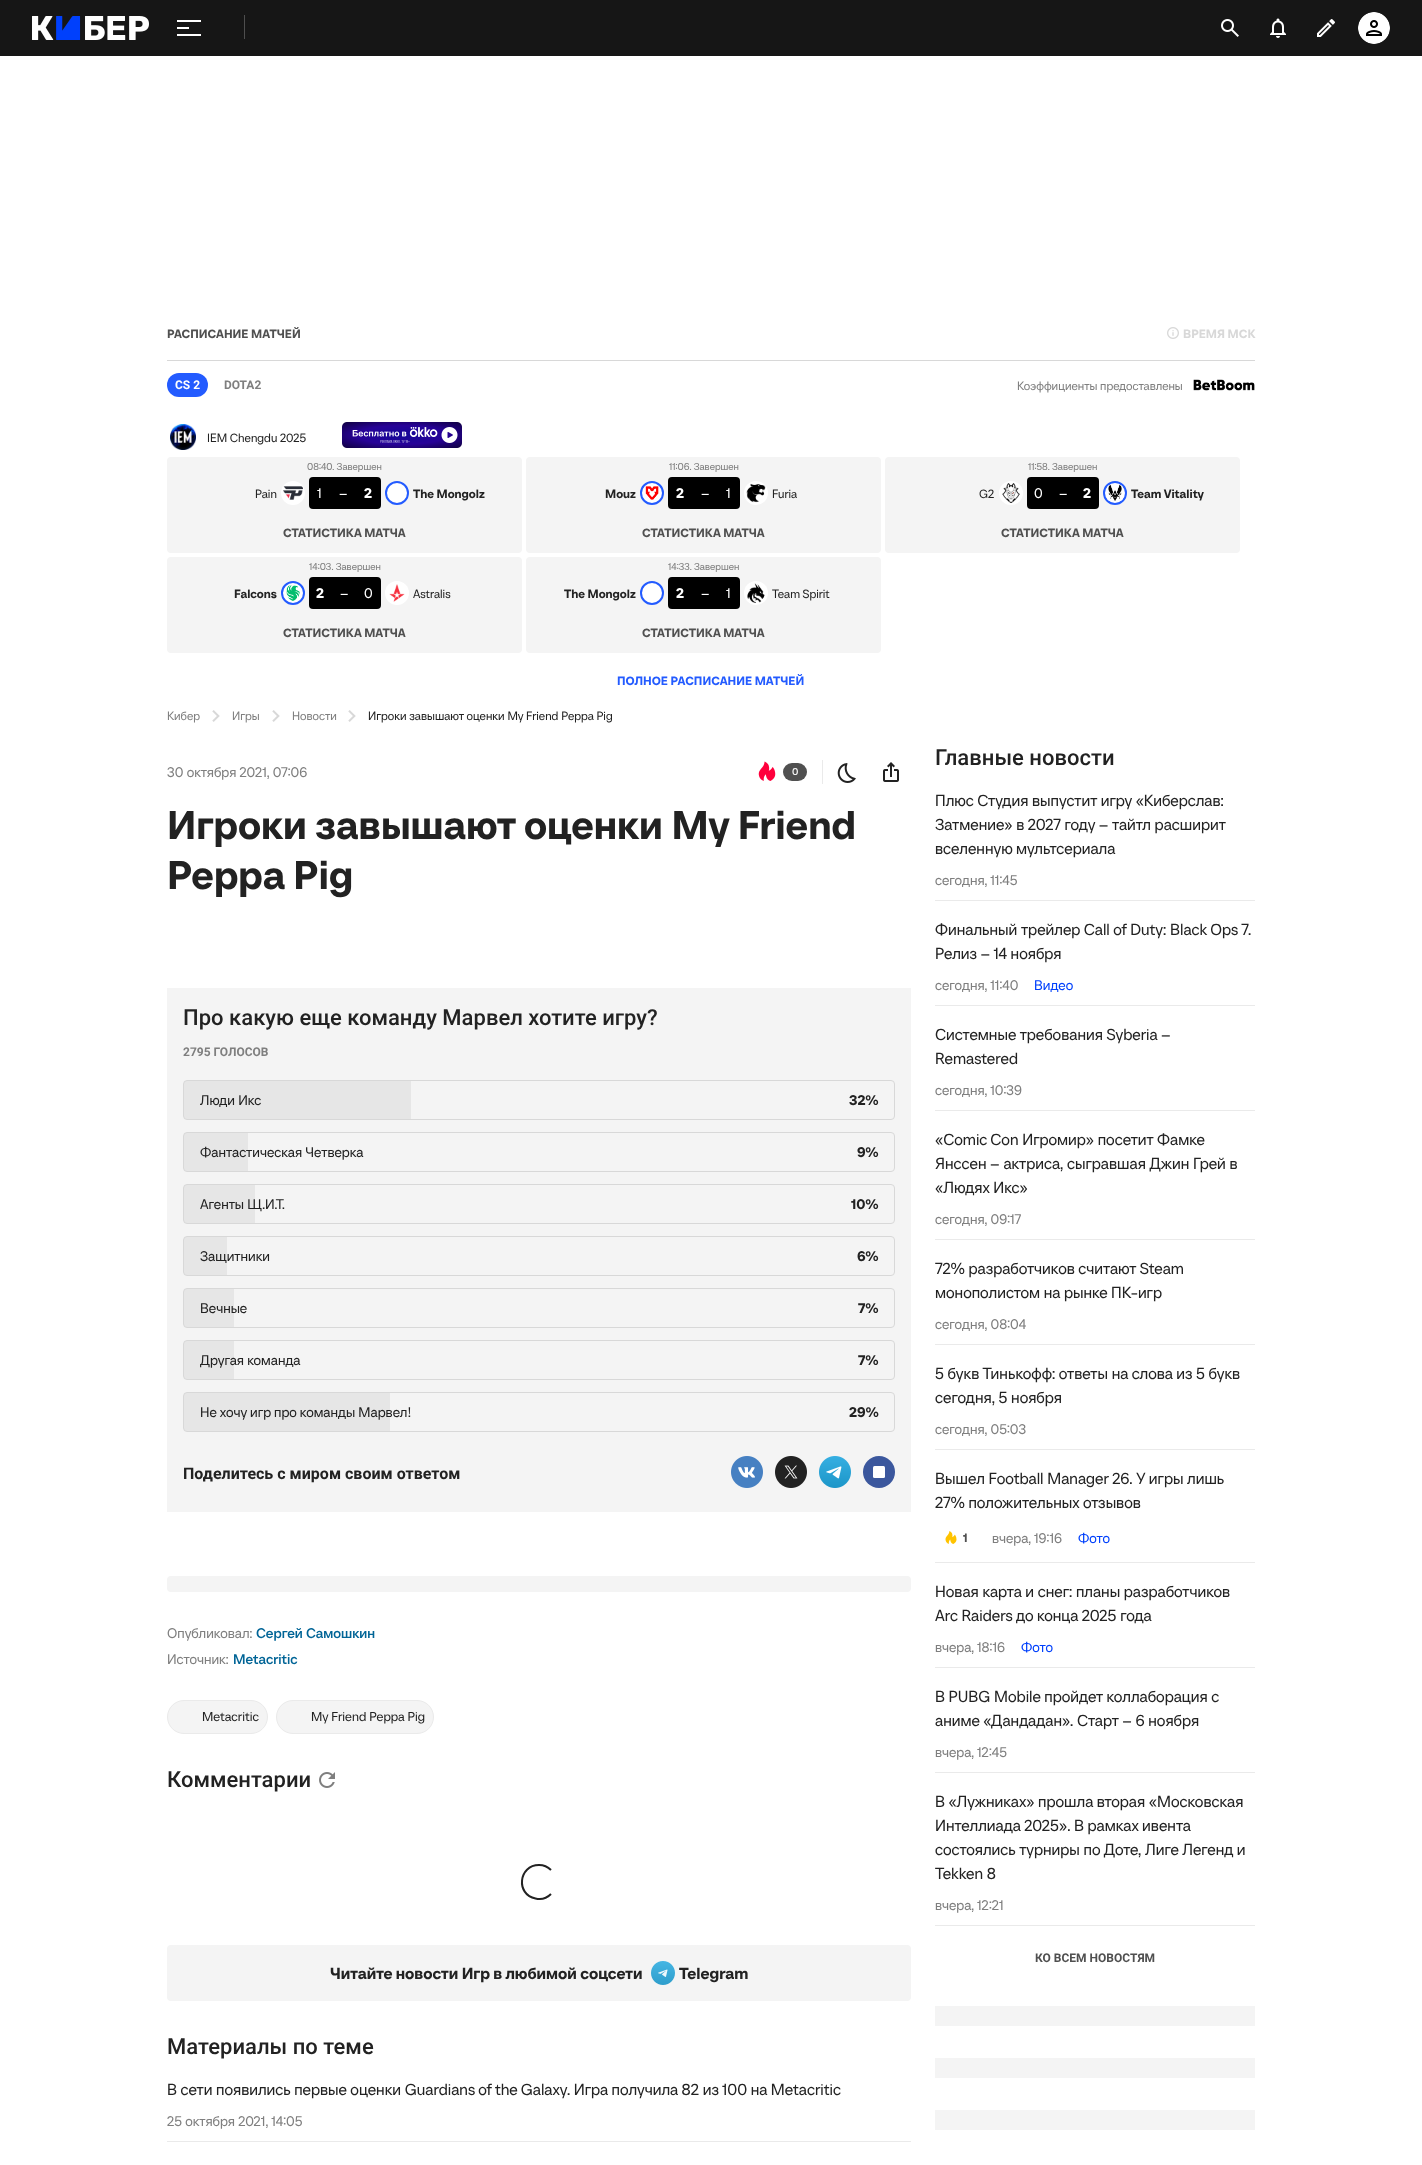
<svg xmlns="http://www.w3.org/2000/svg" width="1422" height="2165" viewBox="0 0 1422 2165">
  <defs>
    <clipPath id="clip1"><rect x="413" y="486" width="103" height="15"/></clipPath>
  </defs>
  <rect width="100%" height="100%" fill="#ffffff"/>
  <rect x="0" y="0" width="1422" height="56" fill="#161616"/>
  <image x="32" y="16" width="117" height="24" href="img1.png"/>
  <rect x="177" y="20" width="24" height="2" fill="#ffffff"/>
  <rect x="177" y="27" width="12" height="2" fill="#ffffff"/>
  <rect x="177" y="34" width="24" height="2" fill="#ffffff"/>
  <rect x="244" y="15" width="1" height="24" fill="#4e4e4e"/>
  <image x="1221" y="19" width="18" height="18" href="img2.png"/>
  <image x="1270" y="18" width="16" height="20" href="img3.png"/>
  <image x="1317" y="19" width="18" height="18" href="img4.png"/>
  <image x="1358" y="12" width="32" height="32" href="img5.png"/>
  <rect x="167" y="360" width="1088" height="1" fill="#d8d8d8"/>
  <text x="167" y="338" font-family="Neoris" font-size="12" font-weight="600" fill="#505050">РАСПИСАНИЕ МАТЧЕЙ</text>
  <image x="1167" y="327" width="12" height="12" href="img6.png"/>
  <text x="1183" y="338" font-family="Neoris" font-size="12" font-weight="600" fill="#d8d8d8">ВРЕМЯ МСК</text>
  <rect x="167" y="373" width="41" height="24" rx="12" fill="#235bff"/>
  <text x="175" y="389" font-family="Roboto" font-size="12" font-weight="bold" fill="#ffffff">CS 2</text>
  <text x="224" y="389" font-family="Roboto" font-size="12" font-weight="bold" fill="#7f7f7f">DOTA2</text>
  <text x="1017" y="390" font-family="Neoris" font-size="12" fill="#7f7f7f">Коэффициенты предоставлены</text>
  <image x="1193" y="379" width="62" height="12" href="img7.png"/>
  <image x="170" y="424" width="26" height="26" href="img8.png"/>
  <text x="207" y="442" font-family="Neoris" font-size="12" fill="#222222">IEM Chengdu 2025</text>
  <image x="342" y="422" width="120" height="26" href="img9.png"/>
  <rect x="167" y="457" width="355" height="96" rx="4" fill="#f4f4f4"/>
  <text x="307" y="470" font-family="Neoris" font-size="10" fill="#7f7f7f">08:40. Завершен</text>
  <text x="255" y="498" font-family="Neoris" font-size="12" fill="#222222">Pain</text>
  <circle cx="293" cy="493" r="12" fill="#ffffff"/>
  <image x="283" y="486" width="20" height="14" href="img10.png"/>
  <rect x="309" y="477" width="72" height="32" rx="4" fill="#000000"/>
  <text x="317" y="498" font-family="Neoris" font-size="14" fill="#ffffff">1</text>
  <text x="339" y="498" font-family="Neoris" font-size="14" fill="#ffffff">–</text>
  <text x="364" y="498" font-family="Neoris" font-size="14" font-weight="600" fill="#ffffff">2</text>
  <circle cx="397" cy="493" r="11" fill="#ffffff" stroke="#235bff" stroke-width="2"/>
  <g clip-path="url(#clip1)">
    <text x="413" y="498" font-family="Neoris" font-size="12" font-weight="600" fill="#222222">The Mongolz</text>
  </g>
  <text x="283" y="537" font-family="Neoris" font-size="12" font-weight="600" fill="#505050">СТАТИСТИКА МАТЧА</text>
  <rect x="526" y="457" width="355" height="96" rx="4" fill="#f4f4f4"/>
  <text x="669" y="470" font-family="Neoris" font-size="10" fill="#7f7f7f">11:06. Завершен</text>
  <text x="605" y="498" font-family="Neoris" font-size="12" font-weight="600" fill="#222222">Mouz</text>
  <circle cx="652" cy="493" r="11" fill="#ffffff" stroke="#235bff" stroke-width="2"/>
  <image x="645" y="486" width="14" height="14" href="img11.png"/>
  <rect x="668" y="477" width="72" height="32" rx="4" fill="#000000"/>
  <text x="676" y="498" font-family="Neoris" font-size="14" font-weight="600" fill="#ffffff">2</text>
  <text x="701" y="498" font-family="Neoris" font-size="14" fill="#ffffff">–</text>
  <text x="726" y="498" font-family="Neoris" font-size="14" fill="#ffffff">1</text>
  <circle cx="756" cy="493" r="12" fill="#ffffff"/>
  <image x="746" y="483" width="20" height="20" href="img12.png"/>
  <text x="772" y="498" font-family="Neoris" font-size="12" fill="#222222">Furia</text>
  <text x="642" y="537" font-family="Neoris" font-size="12" font-weight="600" fill="#505050">СТАТИСТИКА МАТЧА</text>
  <rect x="885" y="457" width="355" height="96" rx="4" fill="#f4f4f4"/>
  <text x="1028" y="470" font-family="Neoris" font-size="10" fill="#7f7f7f">11:58. Завершен</text>
  <text x="979" y="498" font-family="Neoris" font-size="12" fill="#222222">G2</text>
  <circle cx="1011" cy="493" r="12" fill="#ffffff"/>
  <image x="1002" y="483" width="18" height="20" href="img13.png"/>
  <rect x="1027" y="477" width="72" height="32" rx="4" fill="#000000"/>
  <text x="1034" y="498" font-family="Neoris" font-size="14" fill="#ffffff">0</text>
  <text x="1059" y="498" font-family="Neoris" font-size="14" fill="#ffffff">–</text>
  <text x="1083" y="498" font-family="Neoris" font-size="14" font-weight="600" fill="#ffffff">2</text>
  <circle cx="1115" cy="493" r="11" fill="#ffffff" stroke="#235bff" stroke-width="2"/>
  <image x="1107" y="485" width="16" height="16" href="img14.png"/>
  <text x="1131" y="498" font-family="Neoris" font-size="12" font-weight="600" fill="#222222">Team Vitality</text>
  <text x="1001" y="537" font-family="Neoris" font-size="12" font-weight="600" fill="#505050">СТАТИСТИКА МАТЧА</text>
  <rect x="167" y="557" width="355" height="96" rx="4" fill="#f4f4f4"/>
  <text x="309" y="570" font-family="Neoris" font-size="10" fill="#7f7f7f">14:03. Завершен</text>
  <text x="234" y="598" font-family="Neoris" font-size="12" font-weight="600" fill="#222222">Falcons</text>
  <circle cx="293" cy="593" r="11" fill="#ffffff" stroke="#235bff" stroke-width="2"/>
  <image x="286" y="585" width="14" height="16" href="img15.png"/>
  <rect x="309" y="577" width="72" height="32" rx="4" fill="#000000"/>
  <text x="316" y="598" font-family="Neoris" font-size="14" font-weight="600" fill="#ffffff">2</text>
  <text x="340" y="598" font-family="Neoris" font-size="14" fill="#ffffff">–</text>
  <text x="364" y="598" font-family="Neoris" font-size="14" fill="#ffffff">0</text>
  <circle cx="397" cy="593" r="12" fill="#ffffff"/>
  <image x="389" y="584" width="16" height="18" href="img16.png"/>
  <text x="413" y="598" font-family="Neoris" font-size="12" fill="#222222">Astralis</text>
  <text x="283" y="637" font-family="Neoris" font-size="12" font-weight="600" fill="#505050">СТАТИСТИКА МАТЧА</text>
  <rect x="526" y="557" width="355" height="96" rx="4" fill="#f4f4f4"/>
  <text x="668" y="570" font-family="Neoris" font-size="10" fill="#7f7f7f">14:33. Завершен</text>
  <text x="564" y="598" font-family="Neoris" font-size="12" font-weight="600" fill="#222222">The Mongolz</text>
  <circle cx="652" cy="593" r="11" fill="#ffffff" stroke="#235bff" stroke-width="2"/>
  <rect x="668" y="577" width="72" height="32" rx="4" fill="#000000"/>
  <text x="676" y="598" font-family="Neoris" font-size="14" font-weight="600" fill="#ffffff">2</text>
  <text x="701" y="598" font-family="Neoris" font-size="14" fill="#ffffff">–</text>
  <text x="726" y="598" font-family="Neoris" font-size="14" fill="#ffffff">1</text>
  <circle cx="756" cy="593" r="12" fill="#ffffff"/>
  <image x="747" y="583" width="18" height="20" href="img17.png"/>
  <text x="772" y="598" font-family="Neoris" font-size="12" fill="#222222">Team Spirit</text>
  <text x="642" y="637" font-family="Neoris" font-size="12" font-weight="600" fill="#505050">СТАТИСТИКА МАТЧА</text>
  <text x="617" y="685" font-family="Neoris" font-size="12" font-weight="600" fill="#235bff">ПОЛНОЕ РАСПИСАНИЕ МАТЧЕЙ</text>
  <text x="167" y="720" font-family="Neoris" font-size="12" fill="#7f7f7f">Кибер</text>
  <image x="212" y="710" width="8" height="12" href="img18.png"/>
  <text x="232" y="720" font-family="Neoris" font-size="12" fill="#7f7f7f">Игры</text>
  <image x="272" y="710" width="8" height="12" href="img18.png"/>
  <text x="292" y="720" font-family="Neoris" font-size="12" fill="#7f7f7f">Новости</text>
  <image x="348" y="710" width="8" height="12" href="img18.png"/>
  <text x="368" y="720" font-family="Neoris" font-size="12" fill="#222222">Игроки завышают оценки My Friend Peppa Pig</text>
  <text x="167" y="777" font-family="Neoris" font-size="14" fill="#7f7f7f">30 октября 2021, 07:06</text>
  <image x="758" y="761" width="18" height="20" href="img19.png"/>
  <rect x="783" y="763" width="24" height="18" rx="9" fill="#505050"/>
  <text x="792" y="775" font-family="Neoris" font-size="10" font-weight="500" fill="#f4f4f4">0</text>
  <rect x="822" y="760" width="1" height="24" fill="#eaeaea"/>
  <image x="837" y="763" width="19" height="20" href="img20.png"/>
  <image x="883" y="762" width="16" height="20" href="img21.png"/>
  <text x="167" y="839" font-family="Neoris" font-size="40" font-weight="600" fill="#222222">Игроки завышают оценки My Friend</text>
  <text x="167" y="889" font-family="Neoris" font-size="40" font-weight="600" fill="#222222">Peppa Pig</text>
  <rect x="167" y="988" width="744" height="524" fill="#f4f4f4"/>
  <text x="183" y="1025" font-family="Roboto" font-size="22" font-weight="500" fill="#222222">Про какую еще команду Марвел хотите игру?</text>
  <text x="183" y="1056" font-family="Roboto" font-size="12" font-weight="bold" fill="#7f7f7f">2795 ГОЛОСОВ</text>
  <rect x="183.5" y="1080.5" width="711" height="39" rx="3.5" fill="none" stroke="#d8d8d8"/>
  <rect x="184" y="1081" width="227" height="38" fill="#d8d8d8" fill-opacity="0.5"/>
  <text x="200" y="1105" font-family="Neoris" font-size="14" fill="#222222">Люди Икс</text>
  <text x="849" y="1105" font-family="Neoris" font-size="14" font-weight="600" fill="#222222">32%</text>
  <rect x="183.5" y="1132.5" width="711" height="39" rx="3.5" fill="none" stroke="#d8d8d8"/>
  <rect x="184" y="1133" width="64" height="38" fill="#d8d8d8" fill-opacity="0.5"/>
  <text x="200" y="1157" font-family="Neoris" font-size="14" fill="#222222">Фантастическая Четверка</text>
  <text x="857" y="1157" font-family="Neoris" font-size="14" font-weight="600" fill="#222222">9%</text>
  <rect x="183.5" y="1184.5" width="711" height="39" rx="3.5" fill="none" stroke="#d8d8d8"/>
  <rect x="184" y="1185" width="71" height="38" fill="#d8d8d8" fill-opacity="0.5"/>
  <text x="200" y="1209" font-family="Neoris" font-size="14" fill="#222222">Агенты Щ.И.Т.</text>
  <text x="851" y="1209" font-family="Neoris" font-size="14" font-weight="600" fill="#222222">10%</text>
  <rect x="183.5" y="1236.5" width="711" height="39" rx="3.5" fill="none" stroke="#d8d8d8"/>
  <rect x="184" y="1237" width="43" height="38" fill="#d8d8d8" fill-opacity="0.5"/>
  <text x="200" y="1261" font-family="Neoris" font-size="14" fill="#222222">Защитники</text>
  <text x="857" y="1261" font-family="Neoris" font-size="14" font-weight="600" fill="#222222">6%</text>
  <rect x="183.5" y="1288.5" width="711" height="39" rx="3.5" fill="none" stroke="#d8d8d8"/>
  <rect x="184" y="1289" width="50" height="38" fill="#d8d8d8" fill-opacity="0.5"/>
  <text x="200" y="1313" font-family="Neoris" font-size="14" fill="#222222">Вечные</text>
  <text x="858" y="1313" font-family="Neoris" font-size="14" font-weight="600" fill="#222222">7%</text>
  <rect x="183.5" y="1340.5" width="711" height="39" rx="3.5" fill="none" stroke="#d8d8d8"/>
  <rect x="184" y="1341" width="50" height="38" fill="#d8d8d8" fill-opacity="0.5"/>
  <text x="200" y="1365" font-family="Neoris" font-size="14" fill="#222222">Другая команда</text>
  <text x="858" y="1365" font-family="Neoris" font-size="14" font-weight="600" fill="#222222">7%</text>
  <rect x="183.5" y="1392.5" width="711" height="39" rx="3.5" fill="none" stroke="#d8d8d8"/>
  <rect x="184" y="1393" width="206" height="38" fill="#d8d8d8" fill-opacity="0.5"/>
  <text x="200" y="1417" font-family="Neoris" font-size="14" fill="#222222">Не хочу игр про команды Марвел!</text>
  <text x="849" y="1417" font-family="Neoris" font-size="14" font-weight="600" fill="#222222">29%</text>
  <text x="183" y="1479" font-family="Roboto" font-size="16" font-weight="bold" fill="#222222">Поделитесь c миром своим ответом</text>
  <image x="731" y="1456" width="32" height="32" href="img22.png"/>
  <image x="775" y="1456" width="32" height="32" href="img23.png"/>
  <image x="819" y="1456" width="32" height="32" href="img24.png"/>
  <circle cx="879" cy="1472" r="16" fill="#3b579d"/>
  <rect x="873" y="1466" width="12" height="12" rx="1.5" fill="#ffffff"/>
  <rect x="167" y="1576" width="744" height="16" rx="4" fill="#f4f4f4"/>
  <text x="167" y="1638" font-family="Neoris" font-size="14" fill="#7f7f7f">Опубликовал:</text>
  <text x="256" y="1638" font-family="Neoris" font-size="14" font-weight="500" fill="#006496">Сергей Самошкин</text>
  <text x="167" y="1664" font-family="Neoris" font-size="14" fill="#7f7f7f">Источник:</text>
  <text x="233" y="1664" font-family="Neoris" font-size="14" font-weight="500" fill="#006496">Metacritic</text>
  <rect x="167.5" y="1700.5" width="100" height="33" rx="16.5" fill="#f4f4f4" stroke="#eaeaea"/>
  <text x="202" y="1721" font-family="Neoris" font-size="13" fill="#222222">Metacritic</text>
  <rect x="276.5" y="1700.5" width="157" height="33" rx="16.5" fill="#f4f4f4" stroke="#eaeaea"/>
  <text x="311" y="1721" font-family="Neoris" font-size="13" fill="#222222">My Friend Peppa Pig</text>
  <text x="167" y="1787" font-family="Roboto" font-size="22" font-weight="500" fill="#222222">Комментарии</text>
  <image x="319" y="1772" width="16" height="16" href="img25.png"/>
  <path d="M551 1894C547 1898 541 1900 535.5 1898.5C515.5 1894.5 518.5 1865 539 1865C543.5 1865 548 1867 551 1870" fill="none" stroke="#222222" stroke-width="2"/>
  <rect x="167" y="1945" width="744" height="56" rx="4" fill="#f4f4f4"/>
  <text x="330" y="1979" font-family="Neoris" font-size="16" font-weight="600" fill="#222222">Читайте новости Игр в любимой соцсети</text>
  <image x="651" y="1961" width="24" height="24" href="img26.png"/>
  <text x="679" y="1979" font-family="Neoris" font-size="16" font-weight="600" fill="#222222">Telegram</text>
  <text x="167" y="2054" font-family="Roboto" font-size="22" font-weight="500" fill="#222222">Материалы по теме</text>
  <rect x="167" y="2141" width="744" height="1" fill="#eaeaea"/>
  <text x="167" y="2095" font-family="Neoris" font-size="16" fill="#222222">В сети появились первые оценки Guardians of the Galaxy. Игра получила 82 из 100 на Metacritic</text>
  <text x="167" y="2126" font-family="Neoris" font-size="14" fill="#7f7f7f">25 октября 2021, 14:05</text>
  <text x="935" y="765" font-family="Roboto" font-size="22" font-weight="500" fill="#222222">Главные новости</text>
  <rect x="935" y="900" width="320" height="1" fill="#eaeaea"/>
  <text x="935" y="806" font-family="Neoris" font-size="16" fill="#222222">Плюс Студия выпустит игру «Киберслав:</text>
  <text x="935" y="830" font-family="Neoris" font-size="16" fill="#222222">Затмение» в 2027 году – тайтл расширит</text>
  <text x="935" y="854" font-family="Neoris" font-size="16" fill="#222222">вселенную мультсериала</text>
  <text x="935" y="885" font-family="Neoris" font-size="14" fill="#7f7f7f">сегодня, 11:45</text>
  <rect x="935" y="1005" width="320" height="1" fill="#eaeaea"/>
  <text x="935" y="935" font-family="Neoris" font-size="16" fill="#222222">Финальный трейлер Call of Duty: Black Ops 7.</text>
  <text x="935" y="959" font-family="Neoris" font-size="16" fill="#222222">Релиз – 14 ноября</text>
  <text x="935" y="990" font-family="Neoris" font-size="14" fill="#7f7f7f">сегодня, 11:40</text>
  <text x="1034" y="990" font-family="Neoris" font-size="14" fill="#0040fc">Видео</text>
  <rect x="935" y="1110" width="320" height="1" fill="#eaeaea"/>
  <text x="935" y="1040" font-family="Neoris" font-size="16" fill="#222222">Системные требования Syberia –</text>
  <text x="935" y="1064" font-family="Neoris" font-size="16" fill="#222222">Remastered</text>
  <text x="935" y="1095" font-family="Neoris" font-size="14" fill="#7f7f7f">сегодня, 10:39</text>
  <rect x="935" y="1239" width="320" height="1" fill="#eaeaea"/>
  <text x="935" y="1145" font-family="Neoris" font-size="16" fill="#222222">«Comic Con Игромир» посетит Фамке</text>
  <text x="935" y="1169" font-family="Neoris" font-size="16" fill="#222222">Янссен – актриса, сыгравшая Джин Грей в</text>
  <text x="935" y="1193" font-family="Neoris" font-size="16" fill="#222222">«Людях Икс»</text>
  <text x="935" y="1224" font-family="Neoris" font-size="14" fill="#7f7f7f">сегодня, 09:17</text>
  <rect x="935" y="1344" width="320" height="1" fill="#eaeaea"/>
  <text x="935" y="1274" font-family="Neoris" font-size="16" fill="#222222">72% разработчиков считают Steam</text>
  <text x="935" y="1298" font-family="Neoris" font-size="16" fill="#222222">монополистом на рынке ПК-игр</text>
  <text x="935" y="1329" font-family="Neoris" font-size="14" fill="#7f7f7f">сегодня, 08:04</text>
  <rect x="935" y="1449" width="320" height="1" fill="#eaeaea"/>
  <text x="935" y="1379" font-family="Neoris" font-size="16" fill="#222222">5 букв Тинькофф: ответы на слова из 5 букв</text>
  <text x="935" y="1403" font-family="Neoris" font-size="16" fill="#222222">сегодня, 5 ноября</text>
  <text x="935" y="1434" font-family="Neoris" font-size="14" fill="#7f7f7f">сегодня, 05:03</text>
  <rect x="935" y="1562" width="320" height="1" fill="#eaeaea"/>
  <text x="935" y="1484" font-family="Neoris" font-size="16" fill="#222222">Вышел Football Manager 26. У игры лишь</text>
  <text x="935" y="1508" font-family="Neoris" font-size="16" fill="#222222">27% положительных отзывов</text>
  <image x="945" y="1531" width="12" height="13" href="img27.png"/>
  <text x="963" y="1542" font-family="Neoris" font-size="12" font-weight="600" fill="#505050">1</text>
  <text x="992" y="1543" font-family="Neoris" font-size="14" fill="#7f7f7f">вчера, 19:16</text>
  <text x="1078" y="1543" font-family="Neoris" font-size="14" fill="#0040fc">Фото</text>
  <rect x="935" y="1667" width="320" height="1" fill="#eaeaea"/>
  <text x="935" y="1597" font-family="Neoris" font-size="16" fill="#222222">Новая карта и снег: планы разработчиков</text>
  <text x="935" y="1621" font-family="Neoris" font-size="16" fill="#222222">Arc Raiders до конца 2025 года</text>
  <text x="935" y="1652" font-family="Neoris" font-size="14" fill="#7f7f7f">вчера, 18:16</text>
  <text x="1021" y="1652" font-family="Neoris" font-size="14" fill="#0040fc">Фото</text>
  <rect x="935" y="1772" width="320" height="1" fill="#eaeaea"/>
  <text x="935" y="1702" font-family="Neoris" font-size="16" fill="#222222">В PUBG Mobile пройдет коллаборация с</text>
  <text x="935" y="1726" font-family="Neoris" font-size="16" fill="#222222">аниме «Дандадан». Старт – 6 ноября</text>
  <text x="935" y="1757" font-family="Neoris" font-size="14" fill="#7f7f7f">вчера, 12:45</text>
  <rect x="935" y="1925" width="320" height="1" fill="#eaeaea"/>
  <text x="935" y="1807" font-family="Neoris" font-size="16" fill="#222222">В «Лужниках» прошла вторая «Московская</text>
  <text x="935" y="1831" font-family="Neoris" font-size="16" fill="#222222">Интеллиада 2025». В рамках ивента</text>
  <text x="935" y="1855" font-family="Neoris" font-size="16" fill="#222222">состоялись турниры по Доте, Лиге Легенд и</text>
  <text x="935" y="1879" font-family="Neoris" font-size="16" fill="#222222">Tekken 8</text>
  <text x="935" y="1910" font-family="Neoris" font-size="14" fill="#7f7f7f">вчера, 12:21</text>
  <text x="1035" y="1962" font-family="Roboto" font-size="12" font-weight="bold" fill="#505050">КО ВСЕМ НОВОСТЯМ</text>
  <rect x="935" y="2006" width="320" height="20" fill="#f4f4f4"/>
  <rect x="935" y="2058" width="320" height="20" fill="#f4f4f4"/>
  <rect x="935" y="2110" width="320" height="20" fill="#f4f4f4"/>
</svg>
